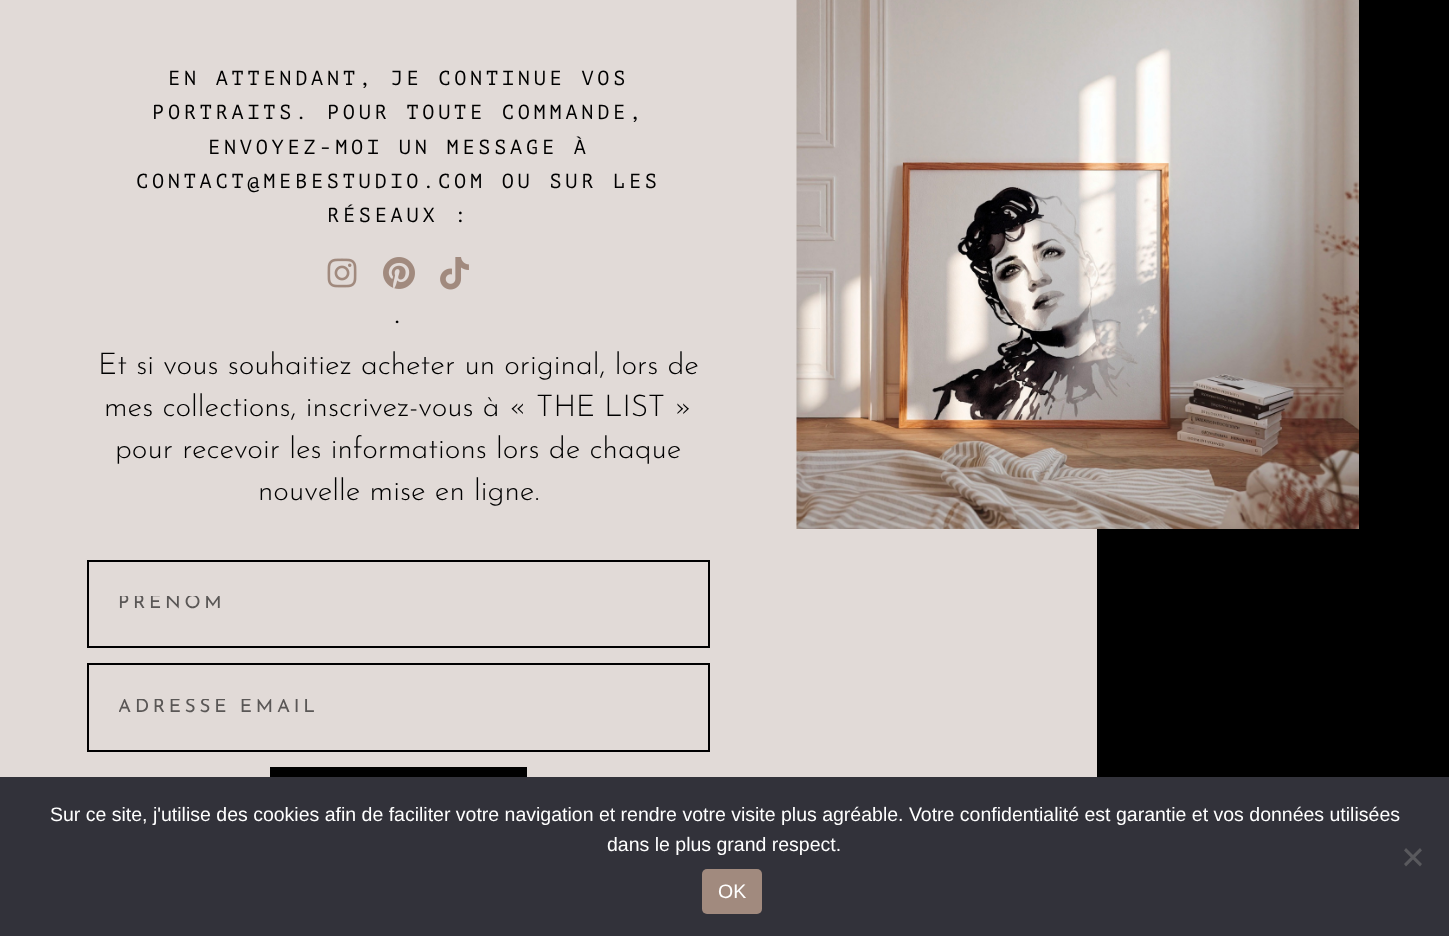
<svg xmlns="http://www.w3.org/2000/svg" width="1449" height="936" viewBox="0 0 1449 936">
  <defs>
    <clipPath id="clip1"><rect x="119" y="596" width="559" height="18"/></clipPath>
    <clipPath id="clip2"><rect x="119" y="699" width="559" height="18"/></clipPath>
  </defs>
  <rect width="100%" height="100%" fill="#e1dad7"/>
  <text x="168" y="85" font-family="PT Mono" font-size="20.25" letter-spacing="3.75" fill="#000000">EN ATTENDANT, JE CONTINUE VOS</text>
  <text x="152" y="119" font-family="PT Mono" font-size="20.25" letter-spacing="3.75" fill="#000000">PORTRAITS. POUR TOUTE COMMANDE,</text>
  <text x="208" y="154" font-family="PT Mono" font-size="20.25" letter-spacing="3.75" fill="#000000">ENVOYEZ-MOI UN MESSAGE À</text>
  <text x="136" y="188" font-family="PT Mono" font-size="20.25" letter-spacing="3.75" fill="#000000">CONTACT@MEBESTUDIO.COM OU SUR LES</text>
  <text x="327" y="222" font-family="PT Mono" font-size="20.25" letter-spacing="3.75" fill="#000000">RÉSEAUX :</text>
  <image x="327" y="258" width="30" height="30" href="img1.png"/>
  <image x="383" y="257" width="32" height="32" href="img2.png"/>
  <image x="440" y="257" width="29" height="33" href="img3.png"/>
  <text x="391" y="323" font-family="PT Mono" font-size="20.25" letter-spacing="3.75" fill="#000000">.</text>
  <text x="98" y="374" font-family="Josefin Sans" font-size="30" font-weight="300" fill="#000000">Et si vous souhaitiez acheter un original, lors de</text>
  <text x="104" y="416" font-family="Josefin Sans" font-size="30" font-weight="300" fill="#000000">mes collections, inscrivez-vous à « THE LIST »</text>
  <text x="115" y="458" font-family="Josefin Sans" font-size="30" font-weight="300" fill="#000000">pour recevoir les informations lors de chaque</text>
  <text x="258" y="500" font-family="Josefin Sans" font-size="30" font-weight="300" fill="#000000">nouvelle mise en ligne.</text>
  <rect x="88" y="561" width="621" height="86" fill="none" stroke="#000000" stroke-width="2"/>
  <g clip-path="url(#clip1)">
    <text x="118" y="608" font-family="Josefin Sans" font-size="18.75" letter-spacing="3.75" fill="#5a5756">PRENOM</text>
  </g>
  <rect x="88" y="664" width="621" height="87" fill="none" stroke="#000000" stroke-width="2"/>
  <g clip-path="url(#clip2)">
    <text x="118" y="712" font-family="Josefin Sans" font-size="18.75" letter-spacing="3.75" fill="#5a5756">ADRESSE EMAIL</text>
  </g>
  <rect x="270" y="767" width="257" height="10" fill="#000000"/>
  <rect x="1097" y="0" width="352" height="777" fill="#000000"/>
  <image x="796" y="0" width="563" height="529" href="img4.png"/>
  <rect x="0" y="777" width="1449" height="159" fill="#32323a"/>
  <text x="50" y="821" font-family="Liberation Sans" font-size="19.5" fill="#ffffff">Sur ce site, j'utilise des cookies afin de faciliter votre navigation et rendre votre visite plus agréable. Votre confidentialité est garantie et vos données utilisées</text>
  <text x="607" y="851" font-family="Liberation Sans" font-size="19.5" fill="#ffffff">dans le plus grand respect.</text>
  <path d="M1420 848L1422 850.5L1406 866.5L1404 864Z" fill="#59595d"/>
  <path d="M1404 850.5L1406 848L1422 864L1420 866.5Z" fill="#59595d"/>
  <rect x="702" y="869" width="60" height="45" rx="5" fill="#a18a7e"/>
  <text x="718" y="898" font-family="Liberation Sans" font-size="19.5" fill="#ffffff">OK</text>
</svg>
